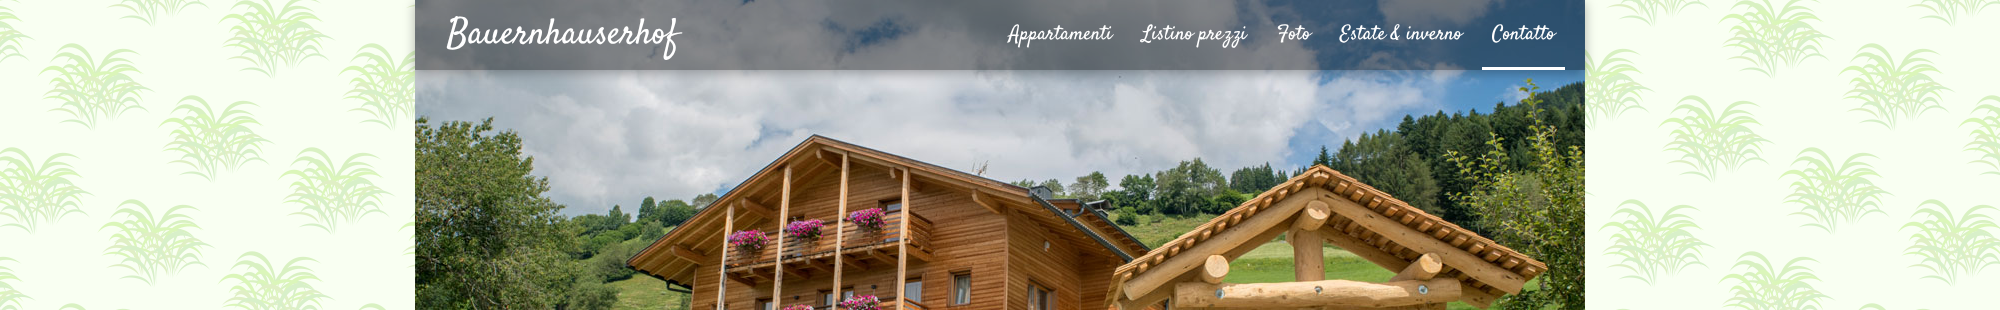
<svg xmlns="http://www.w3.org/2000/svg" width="2000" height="310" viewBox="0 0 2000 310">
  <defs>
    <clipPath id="clip1"><path d="M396 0H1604V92H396ZM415 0H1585V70H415Z" clip-rule="evenodd"/></clipPath>
    <filter id="blur1" x="-50%" y="-200%" width="200%" height="500%"><feGaussianBlur stdDeviation="6"/></filter>
  </defs>
  <rect width="100%" height="100%" fill="#ffffff"/>
  <image x="0" y="0" width="2000" height="310" href="img1.png"/>
  <image x="415" y="0" width="1170" height="310" href="img2.png"/>
  <g clip-path="url(#clip1)">
    <rect x="415" y="3" width="1170" height="70" fill="#000000" fill-opacity="0.3" filter="url(#blur1)"/>
  </g>
  <rect x="415" y="0" width="1170" height="70" fill="#000000" fill-opacity="0.4"/>
  <text x="447" y="43" font-family="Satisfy" font-size="36" fill="#ffffff">Bauernhauserhof</text>
  <text x="1009" y="39" font-family="Satisfy" font-size="20" fill="#ffffff">Appartamenti</text>
  <text x="1142" y="39" font-family="Satisfy" font-size="20" fill="#ffffff">Listino prezzi</text>
  <text x="1277" y="39" font-family="Satisfy" font-size="20" fill="#ffffff">Foto</text>
  <text x="1340" y="39" font-family="Satisfy" font-size="20" fill="#ffffff">Estate &amp; inverno</text>
  <text x="1492" y="39" font-family="Satisfy" font-size="20" fill="#ffffff">Contatto</text>
  <rect x="1482" y="67" width="83" height="3" fill="#ffffff"/>
</svg>
